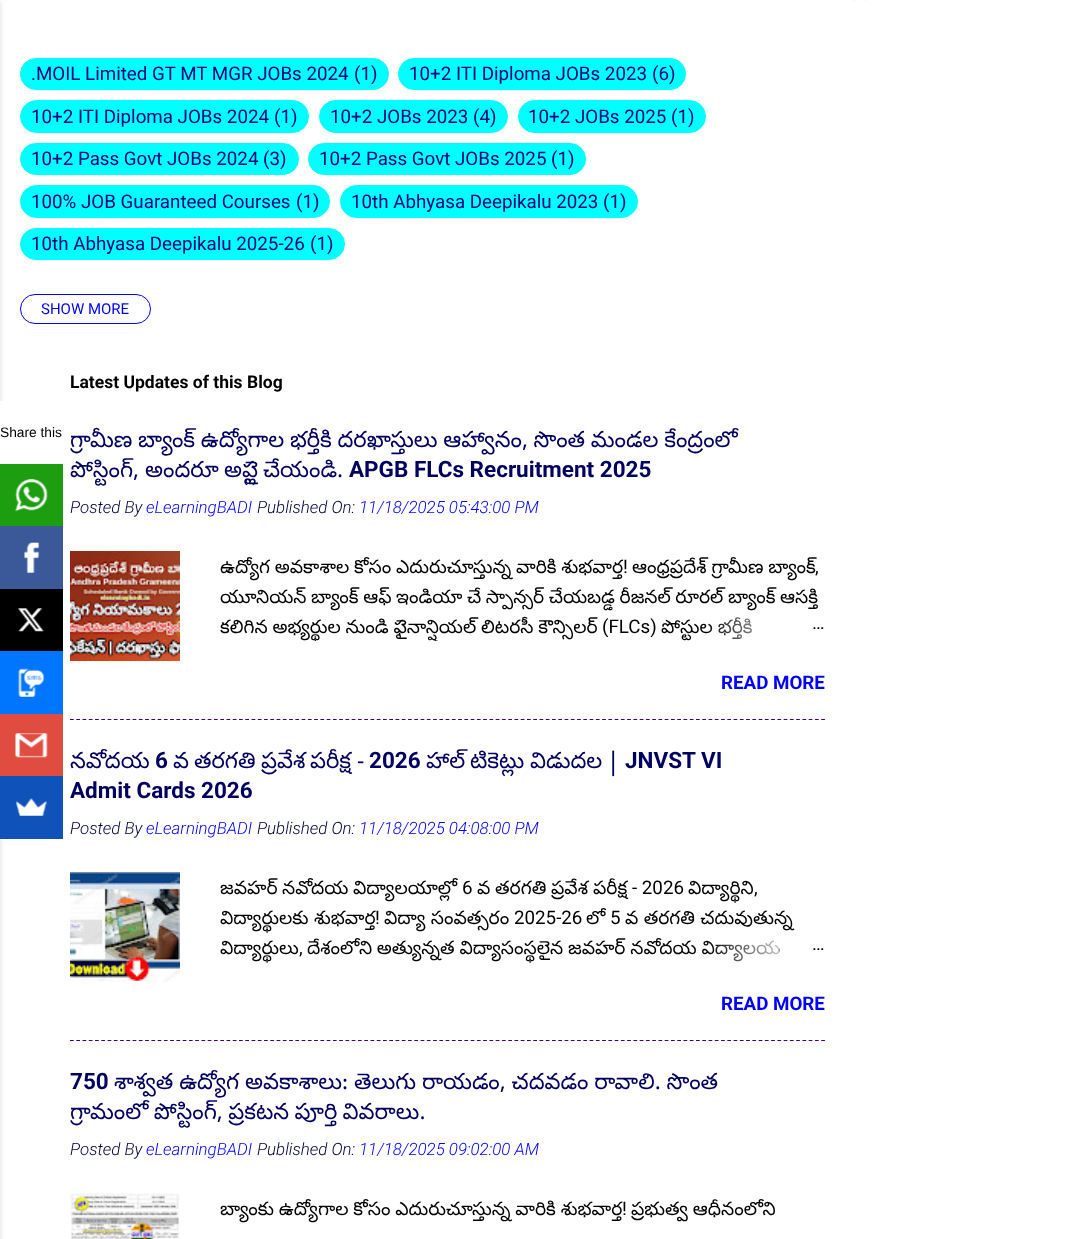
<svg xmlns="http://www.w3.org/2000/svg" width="1074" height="1239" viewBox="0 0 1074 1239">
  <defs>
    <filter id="blur1" x="-50%" y="-200%" width="200%" height="500%"><feGaussianBlur stdDeviation="2"/></filter>
    <clipPath id="clip1"><rect x="220" y="551" width="605" height="90"/></clipPath>
    <linearGradient id="g1" gradientUnits="userSpaceOnUse" x1="825" y1="626" x2="705" y2="626"><stop offset="0" stop-color="#ffffff"/><stop offset="0.2" stop-color="#ffffff"/><stop offset="1" stop-color="#ffffff" stop-opacity="0"/></linearGradient>
    <linearGradient id="g2" gradientUnits="userSpaceOnUse" x1="825" y1="948" x2="705" y2="948"><stop offset="0" stop-color="#ffffff"/><stop offset="0.2" stop-color="#ffffff"/><stop offset="1" stop-color="#ffffff" stop-opacity="0"/></linearGradient>
    <clipPath id="clip2"><rect x="220" y="1194" width="605" height="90"/></clipPath>
  </defs>
  <rect width="100%" height="100%" fill="#ffffff"/>
  <rect x="-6" y="1" width="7" height="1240" fill="#000000" fill-opacity="0.1" filter="url(#blur1)"/>
  <image x="854" y="0" width="12" height="1" href="img1.png"/>
  <rect x="20.5" y="58.5" width="368" height="31" rx="15.5" fill="#00ffff" stroke="#00ffff"/>
  <text x="31" y="80" font-family="Roboto" font-size="18.75" fill="#000080">.MOIL Limited GT MT MGR JOBs 2024</text>
  <text x="354" y="80" font-family="Roboto" font-size="18.75" fill="#000080">(1)</text>
  <rect x="398.5" y="58.5" width="287" height="31" rx="15.5" fill="#00ffff" stroke="#00ffff"/>
  <text x="409" y="80" font-family="Roboto" font-size="18.75" fill="#000080">10+2 ITI Diploma JOBs 2023</text>
  <text x="652" y="80" font-family="Roboto" font-size="18.75" fill="#000080">(6)</text>
  <rect x="20.5" y="100.5" width="288" height="32" rx="16" fill="#00ffff" stroke="#00ffff"/>
  <text x="31" y="123" font-family="Roboto" font-size="18.75" fill="#000080">10+2 ITI Diploma JOBs 2024</text>
  <text x="274" y="123" font-family="Roboto" font-size="18.75" fill="#000080">(1)</text>
  <rect x="319.5" y="100.5" width="188" height="32" rx="16" fill="#00ffff" stroke="#00ffff"/>
  <text x="330" y="123" font-family="Roboto" font-size="18.75" fill="#000080">10+2 JOBs 2023</text>
  <text x="473" y="123" font-family="Roboto" font-size="18.75" fill="#000080">(4)</text>
  <rect x="518.5" y="100.5" width="187" height="32" rx="16" fill="#00ffff" stroke="#00ffff"/>
  <text x="528" y="123" font-family="Roboto" font-size="18.75" fill="#000080">10+2 JOBs 2025</text>
  <text x="671" y="123" font-family="Roboto" font-size="18.75" fill="#000080">(1)</text>
  <rect x="20.5" y="143.5" width="278" height="31" rx="15.5" fill="#00ffff" stroke="#00ffff"/>
  <text x="31" y="165" font-family="Roboto" font-size="18.75" fill="#000080">10+2 Pass Govt JOBs 2024</text>
  <text x="263" y="165" font-family="Roboto" font-size="18.75" fill="#000080">(3)</text>
  <rect x="308.5" y="143.5" width="277" height="31" rx="15.5" fill="#00ffff" stroke="#00ffff"/>
  <text x="319" y="165" font-family="Roboto" font-size="18.75" fill="#000080">10+2 Pass Govt JOBs 2025</text>
  <text x="551" y="165" font-family="Roboto" font-size="18.75" fill="#000080">(1)</text>
  <rect x="20.5" y="185.5" width="309" height="32" rx="16" fill="#00ffff" stroke="#00ffff"/>
  <text x="31" y="208" font-family="Roboto" font-size="18.75" fill="#000080">100% JOB Guaranteed Courses</text>
  <text x="296" y="208" font-family="Roboto" font-size="18.75" fill="#000080">(1)</text>
  <rect x="340.5" y="185.5" width="297" height="32" rx="16" fill="#00ffff" stroke="#00ffff"/>
  <text x="351" y="208" font-family="Roboto" font-size="18.75" fill="#000080">10th Abhyasa Deepikalu 2023</text>
  <text x="603" y="208" font-family="Roboto" font-size="18.75" fill="#000080">(1)</text>
  <rect x="20.5" y="228.5" width="324" height="31" rx="15.5" fill="#00ffff" stroke="#00ffff"/>
  <text x="31" y="250" font-family="Roboto" font-size="18.75" fill="#000080">10th Abhyasa Deepikalu 2025-26</text>
  <text x="310" y="250" font-family="Roboto" font-size="18.75" fill="#000080">(1)</text>
  <rect x="20.5" y="294.5" width="130" height="29" rx="14.5" fill="none" stroke="#0000ff"/>
  <text x="41" y="314" font-family="Roboto" font-size="15" fill="#0000ff">SHOW MORE</text>
  <text x="70" y="388" font-family="Roboto" font-size="17.5" font-weight="bold" fill="#000000">Latest Updates of this Blog</text>
  <text x="70" y="447" word-spacing="-0.75" font-family="Noto Sans Telugu" font-size="22.5" fill="#000060">గ్రామీణ బ్యాంక్ ఉద్యోగాల భర్తీకి దరఖాస్తులు ఆహ్వానం, సొంత మండల కేంద్రంలో</text>
  <text x="70" y="477" font-family="Noto Sans Telugu" font-size="22.5" fill="#000060">పోస్టింగ్,</text>
  <text x="145" y="477" font-family="Noto Sans Telugu" font-size="22.5" fill="#000060">అందరూ</text>
  <text x="224" y="477" font-family="Noto Sans Telugu" font-size="22.5" fill="#000060">అప్లై</text>
  <text x="263" y="477" font-family="Noto Sans Telugu" font-size="22.5" fill="#000060">చేయండి.</text>
  <text x="349" y="477" font-family="Roboto" font-size="22.5" font-weight="bold" fill="#000060">APGB FLCs Recruitment 2025</text>
  <text x="70" y="513" font-family="Roboto" font-size="16.9" font-weight="300" font-style="italic" fill="#000040">Posted By</text>
  <text x="146" y="513" font-family="Roboto" font-size="16.9" font-weight="300" font-style="italic" fill="#0000ff">eLearningBADI</text>
  <text x="257" y="513" font-family="Roboto" font-size="16.9" font-weight="300" font-style="italic" fill="#000040">Published On:</text>
  <text x="359" y="513" font-family="Roboto" font-size="16.9" font-weight="300" font-style="italic" fill="#0000ff">11/18/2025 05:43:00 PM</text>
  <image x="70" y="551" width="110" height="110" href="img2.png"/>
  <text x="220" y="573" word-spacing="-0.5" font-family="Noto Sans Telugu" font-size="18.75" fill="#000000">ఉద్యోగ అవకాశాల కోసం ఎదురుచూస్తున్న వారికి శుభవార్త</text>
  <text x="623" y="573" font-family="Roboto" font-size="18.75" fill="#000000">!</text>
  <text x="632" y="573" word-spacing="-0.5" font-family="Noto Sans Telugu" font-size="18.75" fill="#000000">ఆంధ్రప్రదేశ్ గ్రామీణ బ్యాంక్</text>
  <text x="815" y="573" font-family="Roboto" font-size="18.75" fill="#000000">,</text>
  <g clip-path="url(#clip1)">
    <text x="220" y="603" word-spacing="-0.75" font-family="Noto Sans Telugu" font-size="18.75" fill="#000000">యూనియన్ బ్యాంక్ ఆఫ్ ఇండియా చే స్పాన్సర్ చేయబడ్డ రీజనల్ రూరల్ బ్యాంక్ ఆసక్తి</text>
    <text x="220" y="633" word-spacing="-0.5" font-family="Noto Sans Telugu" font-size="18.75" fill="#000000">కలిగిన అభ్యర్థుల నుండి ఫైనాన్షియల్ లిటరసీ కౌన్సిలర్</text>
  </g>
  <text x="602" y="633" font-family="Roboto" font-size="18.75" fill="#000000">(FLCs)</text>
  <text x="661" y="633" word-spacing="-0.5" font-family="Noto Sans Telugu" font-size="18.75" fill="#000000">పోస్టుల భర్తీకి</text>
  <rect x="707" y="617" width="45" height="22" fill="url(#g1)"/>
  <text x="812" y="629" font-family="Roboto" font-size="18.75" fill="#000000">…</text>
  <text x="721" y="689" font-family="Roboto" font-size="18.75" font-weight="bold" fill="#0000ff">READ MORE</text>
  <path d="M70 719.5H825" fill="none" stroke="#400080" stroke-width="1.2" stroke-dasharray="3.75 2.51"/>
  <text x="70" y="768" font-family="Noto Sans Telugu" font-size="22.5" fill="#000060">నవోదయ</text>
  <text x="155" y="768" font-family="Roboto" font-size="22.5" font-weight="bold" fill="#000060">6</text>
  <text x="173" y="768" font-family="Noto Sans Telugu" font-size="22.5" fill="#000060">వ</text>
  <text x="194" y="768" font-family="Noto Sans Telugu" font-size="22.5" fill="#000060">తరగతి</text>
  <text x="261" y="768" font-family="Noto Sans Telugu" font-size="22.5" fill="#000060">ప్రవేశ</text>
  <text x="310" y="768" font-family="Noto Sans Telugu" font-size="22.5" fill="#000060">పరీక్ష</text>
  <text x="357" y="768" font-family="Noto Sans Telugu" font-size="22.5" fill="#000060">-</text>
  <text x="369" y="768" font-family="Roboto" font-size="22.5" font-weight="bold" fill="#000060">2026</text>
  <text x="426" y="768" font-family="Noto Sans Telugu" font-size="22.5" fill="#000060">హాల్</text>
  <text x="470" y="768" font-family="Noto Sans Telugu" font-size="22.5" fill="#000060">టికెట్లు</text>
  <text x="530" y="768" font-family="Noto Sans Telugu" font-size="22.5" fill="#000060">విడుదల</text>
  <text x="607" y="768" font-family="Noto Sans Telugu" font-size="22.5" fill="#000060">|</text>
  <text x="625" y="768" font-family="Roboto" font-size="22.5" font-weight="bold" fill="#000060">JNVST VI</text>
  <text x="70" y="798" font-family="Roboto" font-size="22.5" font-weight="bold" fill="#000060">Admit Cards 2026</text>
  <text x="70" y="834" font-family="Roboto" font-size="16.9" font-weight="300" font-style="italic" fill="#000040">Posted By</text>
  <text x="146" y="834" font-family="Roboto" font-size="16.9" font-weight="300" font-style="italic" fill="#0000ff">eLearningBADI</text>
  <text x="257" y="834" font-family="Roboto" font-size="16.9" font-weight="300" font-style="italic" fill="#000040">Published On:</text>
  <text x="359" y="834" font-family="Roboto" font-size="16.9" font-weight="300" font-style="italic" fill="#0000ff">11/18/2025 04:08:00 PM</text>
  <image x="70" y="872" width="110" height="111" href="img3.png"/>
  <text x="220" y="894" font-family="Noto Sans Telugu" font-size="18.75" fill="#000000">జవహర్</text>
  <text x="282" y="894" font-family="Noto Sans Telugu" font-size="18.75" fill="#000000">నవోదయ</text>
  <text x="353" y="894" font-family="Noto Sans Telugu" font-size="18.75" fill="#000000">విద్యాలయాల్లో</text>
  <text x="462" y="894" font-family="Roboto" font-size="18.75" fill="#000000">6</text>
  <text x="477" y="894" font-family="Noto Sans Telugu" font-size="18.75" fill="#000000">వ</text>
  <text x="495" y="894" font-family="Noto Sans Telugu" font-size="18.75" fill="#000000">తరగతి</text>
  <text x="551" y="894" font-family="Noto Sans Telugu" font-size="18.75" fill="#000000">ప్రవేశ</text>
  <text x="593" y="894" font-family="Noto Sans Telugu" font-size="18.75" fill="#000000">పరీక్ష</text>
  <text x="632" y="894" font-family="Roboto" font-size="18.75" fill="#000000">- 2026</text>
  <text x="688" y="894" font-family="Noto Sans Telugu" font-size="18.75" fill="#000000">విద్యార్థిని</text>
  <text x="754" y="894" font-family="Roboto" font-size="18.75" fill="#000000">,</text>
  <text x="220" y="924" font-family="Noto Sans Telugu" font-size="18.75" fill="#000000">విద్యార్థులకు శుభవార్త</text>
  <text x="375" y="924" font-family="Roboto" font-size="18.75" fill="#000000">!</text>
  <text x="384" y="924" font-family="Noto Sans Telugu" font-size="18.75" fill="#000000">విద్యా సంవత్సరం</text>
  <text x="514" y="924" font-family="Roboto" font-size="18.75" fill="#000000">2025-26</text>
  <text x="586" y="924" font-family="Noto Sans Telugu" font-size="18.75" fill="#000000">లో</text>
  <text x="610" y="924" font-family="Roboto" font-size="18.75" fill="#000000">5</text>
  <text x="625" y="924" font-family="Noto Sans Telugu" font-size="18.75" fill="#000000">వ తరగతి చదువుతున్న</text>
  <text x="220" y="954" font-family="Noto Sans Telugu" font-size="18.75" fill="#000000">విద్యార్థులు</text>
  <text x="299" y="954" font-family="Roboto" font-size="18.75" fill="#000000">,</text>
  <text x="307" y="954" word-spacing="-0.5" font-family="Noto Sans Telugu" font-size="18.75" fill="#000000">దేశంలోని అత్యున్నత విద్యాసంస్థలైన జవహర్ నవోదయ విద్యాలయ</text>
  <rect x="707" y="940" width="72" height="22" fill="url(#g2)"/>
  <text x="812" y="950" font-family="Roboto" font-size="18.75" fill="#000000">…</text>
  <text x="721" y="1010" font-family="Roboto" font-size="18.75" font-weight="bold" fill="#0000ff">READ MORE</text>
  <path d="M70 1040.5H825" fill="none" stroke="#400080" stroke-width="1.2" stroke-dasharray="3.75 2.51"/>
  <text x="70" y="1089" font-family="Roboto" font-size="22.5" font-weight="bold" fill="#000060">750</text>
  <text x="114" y="1089" word-spacing="-0.5" font-family="Noto Sans Telugu" font-size="22.5" fill="#000060">శాశ్వత ఉద్యోగ అవకాశాలు: తెలుగు రాయడం, చదవడం రావాలి. సొంత</text>
  <text x="70" y="1119" word-spacing="-1" font-family="Noto Sans Telugu" font-size="22.5" fill="#000060">గ్రామంలో పోస్టింగ్, ప్రకటన పూర్తి వివరాలు.</text>
  <text x="70" y="1155" font-family="Roboto" font-size="16.9" font-weight="300" font-style="italic" fill="#000040">Posted By</text>
  <text x="146" y="1155" font-family="Roboto" font-size="16.9" font-weight="300" font-style="italic" fill="#0000ff">eLearningBADI</text>
  <text x="257" y="1155" font-family="Roboto" font-size="16.9" font-weight="300" font-style="italic" fill="#000040">Published On:</text>
  <text x="359" y="1155" font-family="Roboto" font-size="16.9" font-weight="300" font-style="italic" fill="#0000ff">11/18/2025 09:02:00 AM</text>
  <image x="70" y="1193" width="110" height="46" href="img4.png"/>
  <g clip-path="url(#clip2)">
    <text x="220" y="1215" word-spacing="-0.5" font-family="Noto Sans Telugu" font-size="18.75" fill="#000000">బ్యాంకు ఉద్యోగాల కోసం ఎదురుచూస్తున్న వారికి శుభవార్త</text>
  </g>
  <text x="622" y="1215" font-family="Roboto" font-size="18.75" fill="#000000">!</text>
  <text x="631" y="1215" word-spacing="-0.5" font-family="Noto Sans Telugu" font-size="18.75" fill="#000000">ప్రభుత్వ ఆధీనంలోని</text>
  <rect x="0" y="401" width="63" height="63" fill="#ffffff"/>
  <text x="0" y="437" font-family="Liberation Sans" font-size="13.75" fill="#000000">Share this</text>
  <rect x="0" y="464" width="63" height="62" fill="#1d9e11"/>
  <image x="15" y="479" width="33" height="33" href="img5.png"/>
  <rect x="0" y="526" width="63" height="63" fill="#3b5998"/>
  <image x="24" y="542" width="16" height="31" href="img6.png"/>
  <rect x="0" y="589" width="63" height="62" fill="#000000"/>
  <image x="17" y="608" width="27" height="24" href="img7.png"/>
  <rect x="0" y="651" width="63" height="63" fill="#0076ff"/>
  <image x="18" y="668" width="27" height="29" href="img8.png"/>
  <rect x="0" y="714" width="63" height="62" fill="#e04c40"/>
  <image x="15" y="733" width="33" height="25" href="img9.png"/>
  <rect x="0" y="776" width="63" height="63" fill="#0f52ba"/>
  <image x="15" y="798" width="32" height="18" href="img10.png"/>
</svg>
